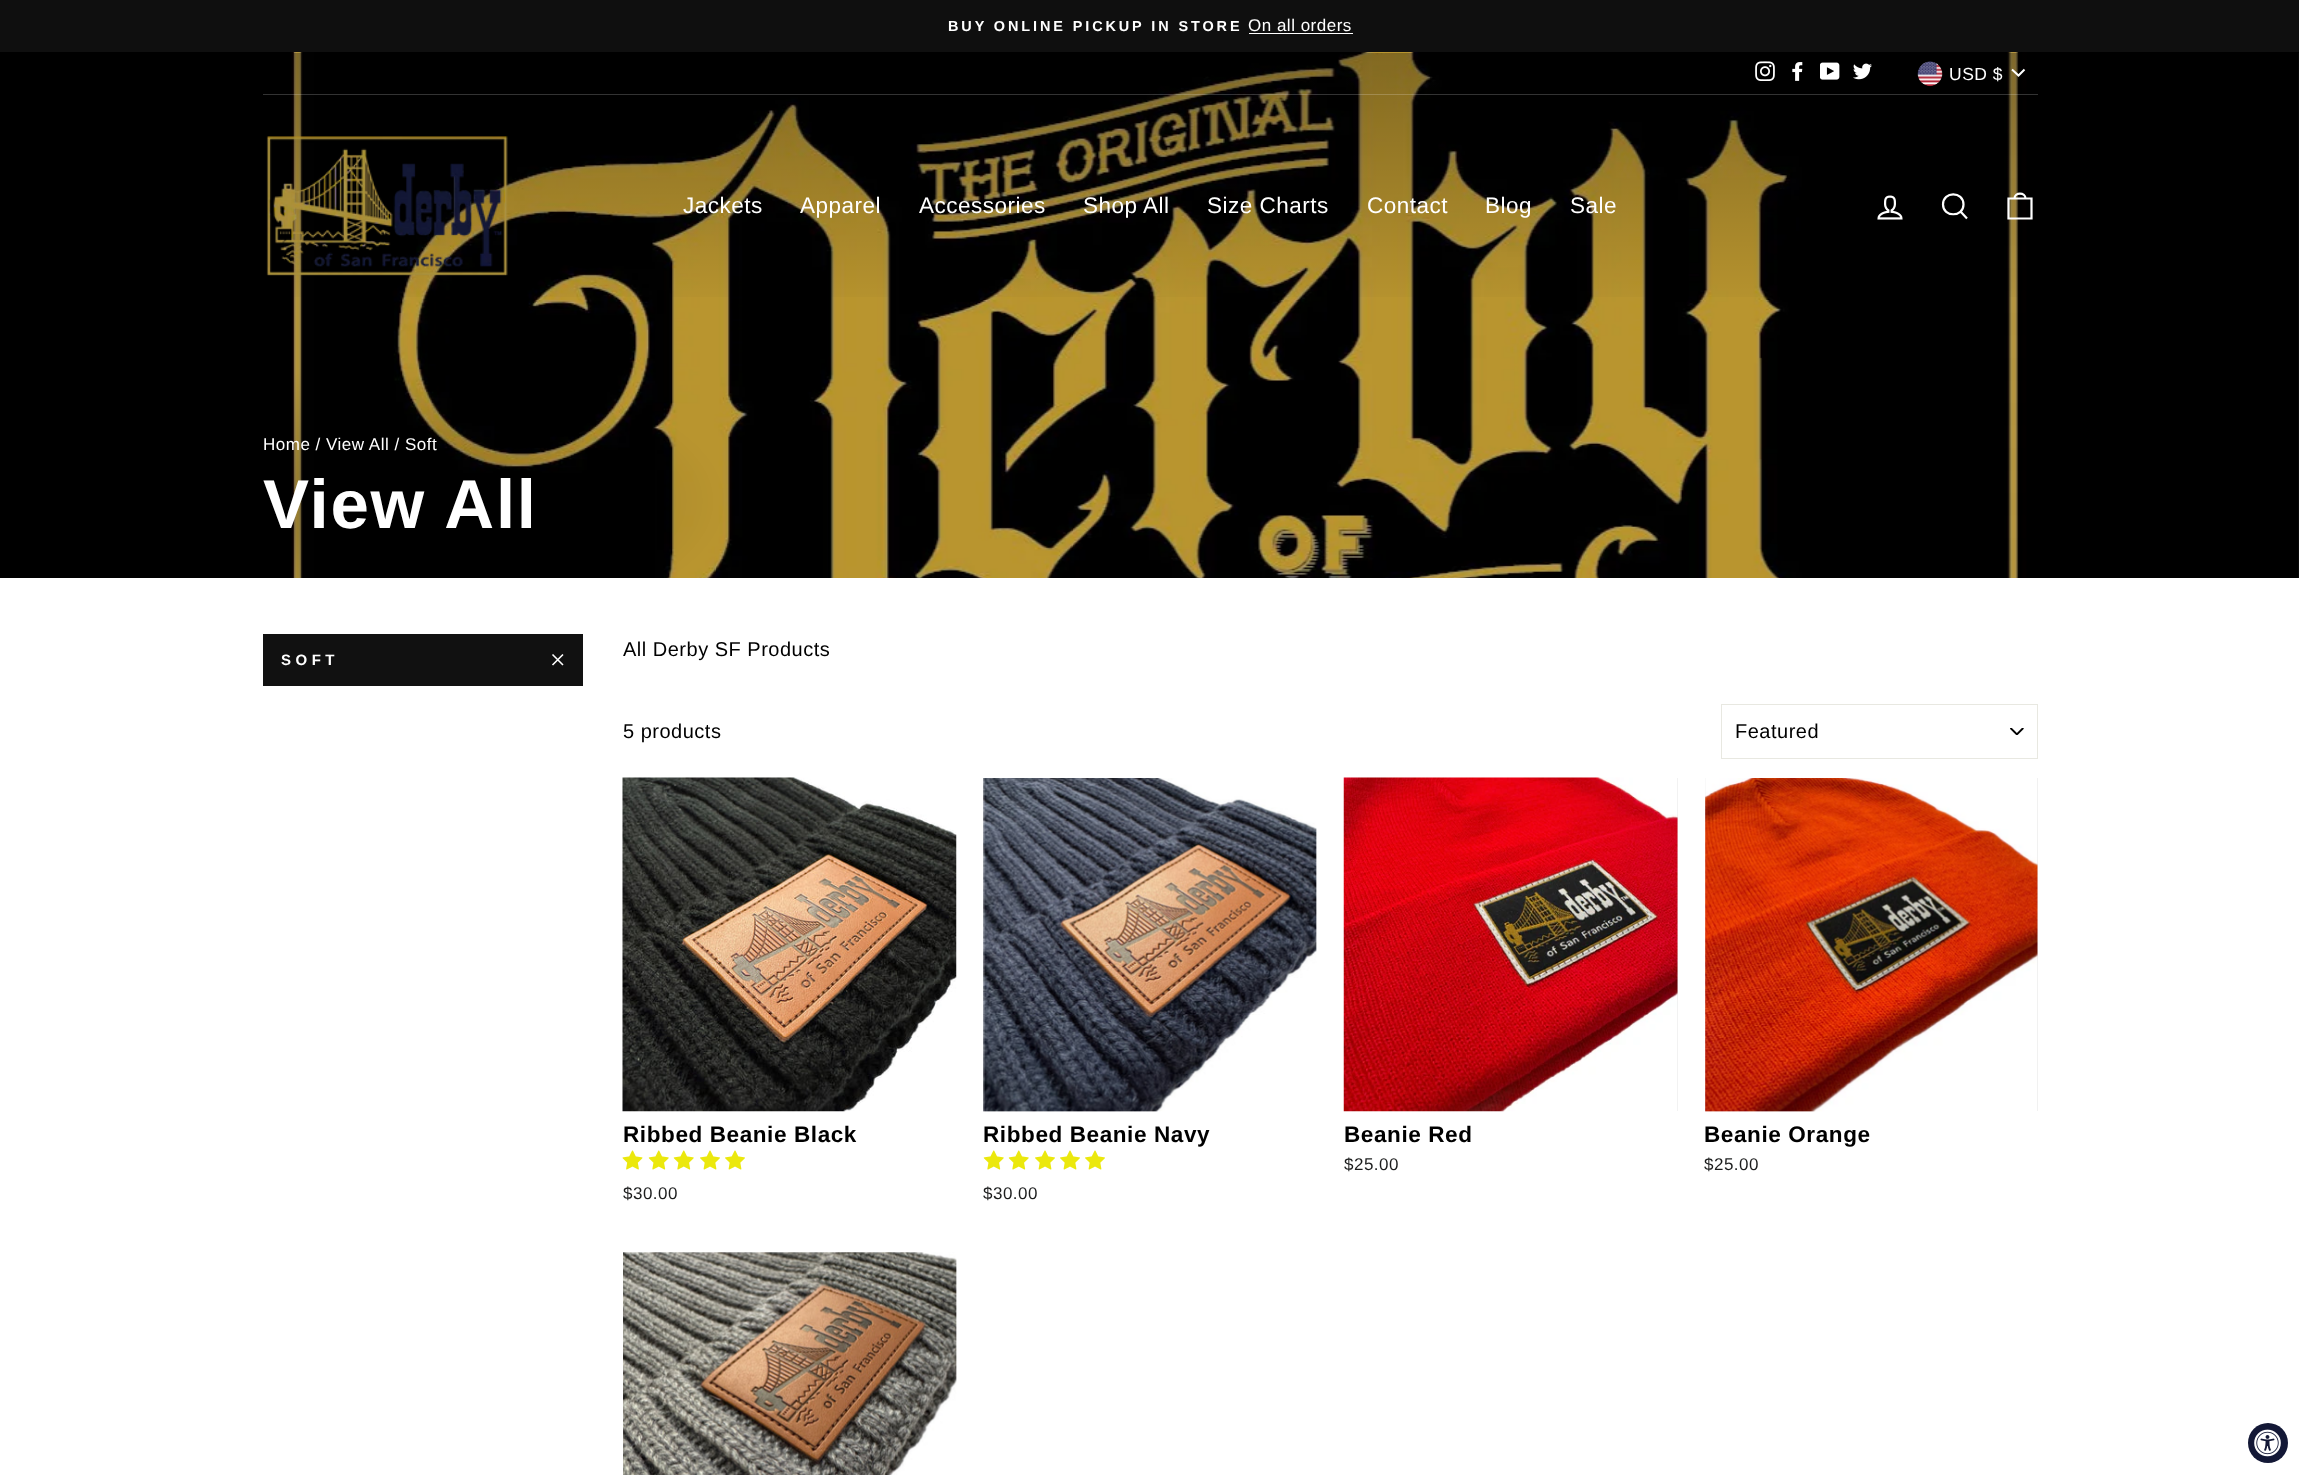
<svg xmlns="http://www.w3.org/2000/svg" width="2299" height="1475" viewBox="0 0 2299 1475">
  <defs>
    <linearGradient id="g1" gradientUnits="userSpaceOnUse" x1="1150" y1="52" x2="1150" y2="316"><stop offset="0" stop-color="#000000" stop-opacity="0.3"/><stop offset="1" stop-color="#000000" stop-opacity="0"/></linearGradient>
  </defs>
  <rect width="100%" height="100%" fill="#ffffff"/>
  <rect x="0" y="0" width="2299" height="53" fill="#0f0f0f"/>
  <text x="948" y="31" font-family="Arimo" font-size="14.45" font-weight="bold" letter-spacing="2.9" fill="#ffffff">BUY ONLINE PICKUP IN STORE</text>
  <text x="1248" y="31" font-family="Arimo" font-size="17" letter-spacing="0.5" fill="#ffffff">On all orders</text>
  <rect x="1249" y="33" width="104" height="1" fill="#ffffff"/>
  <image x="0" y="52" width="2299" height="526" href="img8.png"/>
  <rect x="292" y="53" width="2007" height="244" fill="url(#g1)"/>
  <rect x="263" y="94" width="1775" height="1" fill="#ffffff" fill-opacity="0.2"/>
  <image x="1755" y="61" width="20" height="20" href="img1.png"/>
  <image x="1792" y="62" width="11" height="19" href="img2.png"/>
  <image x="1820" y="62" width="20" height="18" href="img3.png"/>
  <image x="1853" y="63" width="19" height="17" href="img4.png"/>
  <image x="1917" y="61" width="26" height="26" href="img5.png"/>
  <text x="1949" y="80" font-family="Arimo" font-size="17.5" letter-spacing="0.5" fill="#ffffff">USD $</text>
  <path d="M2012 69.5L2018.5 75.5L2024.5 69.5" fill="none" stroke="#ffffff" stroke-width="2"/>
  <image x="266" y="136" width="242" height="140" href="img6.png"/>
  <text x="683" y="213" font-family="Arimo" font-size="22.5" letter-spacing="0.5" fill="#ffffff">Jackets</text>
  <text x="800" y="213" font-family="Arimo" font-size="22.5" letter-spacing="0.5" fill="#ffffff">Apparel</text>
  <text x="919" y="213" font-family="Arimo" font-size="22.5" letter-spacing="0.5" fill="#ffffff">Accessories</text>
  <text x="1083" y="213" font-family="Arimo" font-size="22.5" letter-spacing="0.5" fill="#ffffff">Shop All</text>
  <text x="1207" y="213" font-family="Arimo" font-size="22.5" letter-spacing="0.5" fill="#ffffff">Size Charts</text>
  <text x="1367" y="213" font-family="Arimo" font-size="22.5" letter-spacing="0.5" fill="#ffffff">Contact</text>
  <text x="1485" y="213" font-family="Arimo" font-size="22.5" letter-spacing="0.5" fill="#ffffff">Blog</text>
  <text x="1570" y="213" font-family="Arimo" font-size="22.5" letter-spacing="0.5" fill="#ffffff">Sale</text>
  <image x="1877" y="195" width="26" height="25" href="img7.png"/>
  <path d="M1963.5 204.5C1963.5 217.5 1943 217.5 1943 204.5C1943 191 1963.5 191 1963.5 204.5ZM1967 218.5L1960.5 211.5" fill="none" stroke="#ffffff" stroke-width="2.2"/>
  <path d="M2008.5 198.5H2031.5V218.5H2008.5ZM2014.5 198.5C2014.5 192 2025.5 192 2025.5 198.5" fill="none" stroke="#ffffff" stroke-width="2.2"/>
  <text x="263" y="450" font-family="Arimo" font-size="17" letter-spacing="0.5" fill="#ffffff">Home / View All / Soft</text>
  <text x="263" y="528" font-family="Arimo" font-size="69" font-weight="bold" letter-spacing="1.75" fill="#ffffff">View All</text>
  <rect x="263" y="634" width="320" height="52" fill="#111111"/>
  <text x="281" y="665" font-family="Arimo" font-size="15" font-weight="bold" letter-spacing="4.5" fill="#ffffff">SOFT</text>
  <path d="M552.5 654.5L563 665M563 654.5L552.5 665" fill="none" stroke="#ffffff" stroke-width="1.6"/>
  <text x="623" y="656" font-family="Arimo" font-size="20" letter-spacing="0.5" fill="#000000">All Derby SF Products</text>
  <text x="623" y="738" font-family="Arimo" font-size="20" letter-spacing="0.5" fill="#000000">5 products</text>
  <image x="2010" y="728" width="14" height="7" href="img9.png"/>
  <rect x="1721.5" y="704.5" width="316" height="54" fill="none" stroke="#e8e8e1"/>
  <text x="1735" y="738" font-family="Arimo" font-size="20" letter-spacing="0.5" fill="#000000">Featured</text>
  <image x="622" y="777" width="335" height="335" href="img10.png"/>
  <text x="623" y="1142" font-family="Arimo" font-size="22.5" font-weight="bold" letter-spacing="0.6" fill="#000000">Ribbed Beanie Black</text>
  <image x="622" y="1150" width="21" height="20" href="img11.png"/>
  <image x="648" y="1150" width="21" height="20" href="img12.png"/>
  <image x="673" y="1150" width="21" height="20" href="img12.png"/>
  <image x="700" y="1150" width="20" height="20" href="img13.png"/>
  <image x="725" y="1150" width="20" height="20" href="img13.png"/>
  <text x="623" y="1199" font-family="Arimo" font-size="17" letter-spacing="0.5" fill="#1c1d1d">$30.00</text>
  <image x="983" y="778" width="334" height="334" href="img14.png"/>
  <text x="983" y="1142" font-family="Arimo" font-size="22.5" font-weight="bold" letter-spacing="0.6" fill="#000000">Ribbed Beanie Navy</text>
  <image x="983" y="1150" width="21" height="20" href="img12.png"/>
  <image x="1008" y="1150" width="21" height="20" href="img12.png"/>
  <image x="1035" y="1150" width="20" height="20" href="img13.png"/>
  <image x="1060" y="1150" width="20" height="20" href="img13.png"/>
  <image x="1085" y="1150" width="20" height="20" href="img13.png"/>
  <text x="983" y="1199" font-family="Arimo" font-size="17" letter-spacing="0.5" fill="#1c1d1d">$30.00</text>
  <rect x="1677" y="778" width="1" height="333" fill="#e5e5e5"/>
  <image x="1343" y="777" width="335" height="335" href="img15.png"/>
  <text x="1344" y="1142" font-family="Arimo" font-size="22.5" font-weight="bold" letter-spacing="0.6" fill="#000000">Beanie Red</text>
  <text x="1344" y="1170" font-family="Arimo" font-size="17" letter-spacing="0.5" fill="#1c1d1d">$25.00</text>
  <rect x="1705" y="778" width="333" height="333" fill="#e5e5e5"/>
  <image x="1705" y="778" width="333" height="334" href="img16.png"/>
  <text x="1704" y="1142" font-family="Arimo" font-size="22.5" font-weight="bold" letter-spacing="0.6" fill="#000000">Beanie Orange</text>
  <text x="1704" y="1170" font-family="Arimo" font-size="17" letter-spacing="0.5" fill="#1c1d1d">$25.00</text>
  <image x="623" y="1252" width="334" height="223" href="img17.png"/>
  <circle cx="2268" cy="1443" r="20" fill="#131836"/>
  <image x="2254" y="1429" width="27" height="28" href="img18.png"/>
</svg>
